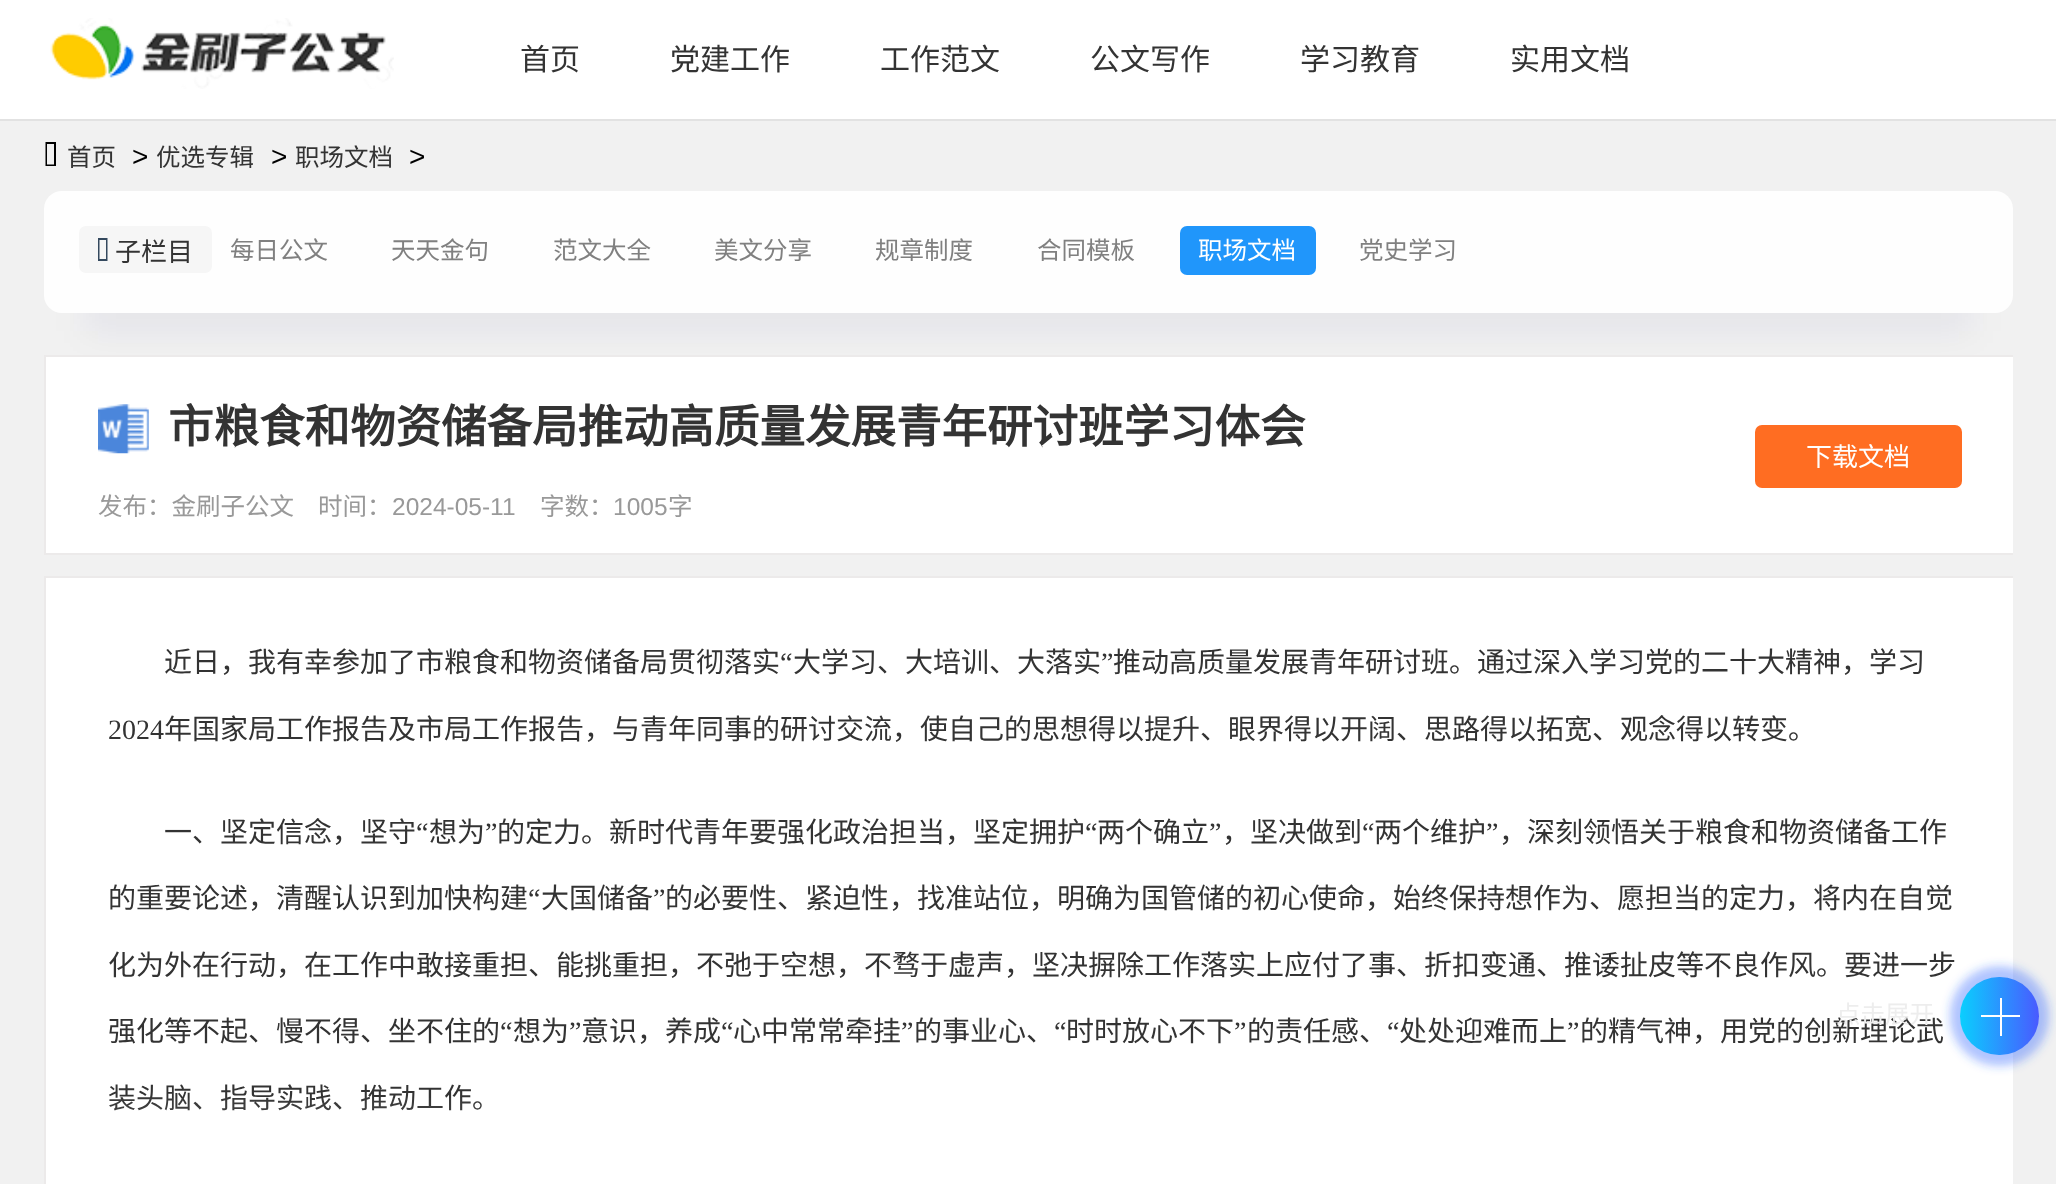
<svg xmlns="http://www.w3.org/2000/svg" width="2056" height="1184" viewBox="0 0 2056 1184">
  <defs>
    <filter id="blur1" x="-50%" y="-200%" width="200%" height="500%"><feGaussianBlur stdDeviation="17.5"/></filter>
    <clipPath id="clip1"><rect x="44" y="355" width="1969" height="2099"/></clipPath>
    <linearGradient id="g1" gradientUnits="userSpaceOnUse" x1="1034" y1="1090" x2="1034" y2="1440"><stop offset="0" stop-color="#ffffff" stop-opacity="0"/><stop offset="1" stop-color="#ffffff"/></linearGradient>
    <filter id="blur2" x="-50%" y="-200%" width="200%" height="500%"><feGaussianBlur stdDeviation="5"/></filter>
    <linearGradient id="g2" gradientUnits="userSpaceOnUse" x1="1960" y1="1016" x2="2039" y2="1016"><stop offset="0" stop-color="#0acffe"/><stop offset="1" stop-color="#495aff"/></linearGradient>
  </defs>
  <rect width="100%" height="100%" fill="#f1f1f1"/>
  <rect x="0" y="0" width="2056" height="119" fill="#ffffff"/>
  <rect x="0" y="119" width="2056" height="2" fill="#e2e2e2"/>
  <image x="50" y="18" width="344" height="71" href="img1.png"/>
  <text x="520" y="70" font-family="Noto Sans CJK SC" font-size="30" fill="#333333">首页</text>
  <text x="670" y="70" font-family="Noto Sans CJK SC" font-size="30" fill="#333333">党建工作</text>
  <text x="880" y="70" font-family="Noto Sans CJK SC" font-size="30" fill="#333333">工作范文</text>
  <text x="1090" y="70" font-family="Noto Sans CJK SC" font-size="30" fill="#333333">公文写作</text>
  <text x="1300" y="70" font-family="Noto Sans CJK SC" font-size="30" fill="#333333">学习教育</text>
  <text x="1510" y="70" font-family="Noto Sans CJK SC" font-size="30" fill="#333333">实用文档</text>
  <path d="M47 164.5H54V144H47ZM45.5 166V142H56V166Z" fill="#000000"/>
  <text x="67" y="166" font-family="Noto Sans CJK SC" font-size="24.5" fill="#333333">首页</text>
  <text x="132" y="166" font-family="Liberation Sans" font-size="28" fill="#000000">&gt;</text>
  <text x="156" y="166" font-family="Noto Sans CJK SC" font-size="24.5" fill="#333333">优选专辑</text>
  <text x="271" y="166" font-family="Liberation Sans" font-size="28" fill="#000000">&gt;</text>
  <text x="295" y="166" font-family="Noto Sans CJK SC" font-size="24.5" fill="#333333">职场文档</text>
  <text x="409" y="166" font-family="Liberation Sans" font-size="28" fill="#000000">&gt;</text>
  <rect x="86" y="292" width="1885" height="39" fill="#002464" fill-opacity="0.06" filter="url(#blur1)"/>
  <rect x="44" y="191" width="1969" height="122" rx="18" fill="#fefefe"/>
  <rect x="79" y="226" width="133" height="47" rx="7" fill="#f6f6f6"/>
  <path d="M99.5 259H106V240H99.5ZM98 261V238H107.5V261Z" fill="#34495e"/>
  <text x="115" y="261" font-family="Noto Sans CJK SC" font-size="26" fill="#333333">子栏目</text>
  <text x="230" y="259" font-family="Noto Sans CJK SC" font-size="24.5" fill="#808080">每日公文</text>
  <text x="391" y="259" font-family="Noto Sans CJK SC" font-size="24.5" fill="#808080">天天金句</text>
  <text x="553" y="259" font-family="Noto Sans CJK SC" font-size="24.5" fill="#808080">范文大全</text>
  <text x="714" y="259" font-family="Noto Sans CJK SC" font-size="24.5" fill="#808080">美文分享</text>
  <text x="875" y="259" font-family="Noto Sans CJK SC" font-size="24.5" fill="#808080">规章制度</text>
  <text x="1037" y="259" font-family="Noto Sans CJK SC" font-size="24.5" fill="#808080">合同模板</text>
  <rect x="1180" y="226" width="136" height="49" rx="7" fill="#2096fb"/>
  <text x="1198" y="259" font-family="Noto Sans CJK SC" font-size="24.5" fill="#ffffff">职场文档</text>
  <text x="1359" y="259" font-family="Noto Sans CJK SC" font-size="24.5" fill="#808080">党史学习</text>
  <rect x="46" y="357" width="1967" height="196" fill="#ffffff"/>
  <g clip-path="url(#clip1)">
    <rect x="45" y="356" width="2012" height="198" fill="none" stroke="#eceaea" stroke-width="2"/>
  </g>
  <image x="98" y="404" width="51" height="50" href="img2.png"/>
  <text x="168" y="443" font-family="Noto Sans CJK SC" font-size="45.5" font-weight="bold" fill="#333333">市粮食和物资储备局推动高质量发展青年研讨班学习体会</text>
  <rect x="1755" y="425" width="207" height="63" rx="7" fill="#ff6d22"/>
  <text x="1806" y="466" font-family="Noto Sans CJK SC" font-size="26" fill="#ffffff">下载文档</text>
  <text x="98" y="515" font-family="Noto Sans CJK SC" font-size="24.5" fill="#999999">发布：金刷子公文</text>
  <text x="318" y="515" font-family="Noto Sans CJK SC" font-size="24.5" fill="#999999">时间：</text>
  <text x="392" y="515" font-family="Liberation Sans" font-size="24.5" fill="#999999">2024-05-11</text>
  <text x="540" y="515" font-family="Noto Sans CJK SC" font-size="24.5" fill="#999999">字数：</text>
  <text x="613" y="515" font-family="Liberation Sans" font-size="24.5" fill="#999999">1005</text>
  <text x="668" y="515" font-family="Noto Sans CJK SC" font-size="24.5" fill="#999999">字</text>
  <rect x="46" y="578" width="1967" height="606" fill="#ffffff"/>
  <g clip-path="url(#clip1)">
    <rect x="45" y="577" width="1979" height="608" fill="none" stroke="#eceaea" stroke-width="2"/>
  </g>
  <text x="164" y="672" font-family="Noto Sans CJK SC" font-size="28" fill="#333333">近日，我有幸参加了市粮食和物资储备局贯彻落实</text>
  <text x="780" y="672" font-family="Liberation Serif" font-size="28" fill="#333333">“</text>
  <text x="793" y="672" font-family="Noto Sans CJK SC" font-size="28" fill="#333333">大学习、大培训、大落实</text>
  <text x="1101" y="672" font-family="Liberation Serif" font-size="28" fill="#333333">”</text>
  <text x="1113" y="672" font-family="Noto Sans CJK SC" font-size="28" fill="#333333">推动高质量发展青年研讨班。通过深入学习党的二十大精神，学习</text>
  <text x="108" y="739" font-family="Liberation Serif" font-size="28" fill="#333333">2024</text>
  <text x="164" y="739" font-family="Noto Sans CJK SC" font-size="28" fill="#333333">年国家局工作报告及市局工作报告，与青年同事的研讨交流，使自己的思想得以提升、眼界得以开阔、思路得以拓宽、观念得以转变。</text>
  <text x="164" y="842" font-family="Noto Sans CJK SC" font-size="28" fill="#333333">一、坚定信念，坚守</text>
  <text x="416" y="842" font-family="Liberation Serif" font-size="28" fill="#333333">“</text>
  <text x="429" y="842" font-family="Noto Sans CJK SC" font-size="28" fill="#333333">想为</text>
  <text x="485" y="842" font-family="Liberation Serif" font-size="28" fill="#333333">”</text>
  <text x="497" y="842" font-family="Noto Sans CJK SC" font-size="28" fill="#333333">的定力。新时代青年要强化政治担当，坚定拥护</text>
  <text x="1085" y="842" font-family="Liberation Serif" font-size="28" fill="#333333">“</text>
  <text x="1097" y="842" font-family="Noto Sans CJK SC" font-size="28" fill="#333333">两个确立</text>
  <text x="1209" y="842" font-family="Liberation Serif" font-size="28" fill="#333333">”</text>
  <text x="1222" y="842" font-family="Noto Sans CJK SC" font-size="28" fill="#333333">，坚决做到</text>
  <text x="1362" y="842" font-family="Liberation Serif" font-size="28" fill="#333333">“</text>
  <text x="1374" y="842" font-family="Noto Sans CJK SC" font-size="28" fill="#333333">两个维护</text>
  <text x="1486" y="842" font-family="Liberation Serif" font-size="28" fill="#333333">”</text>
  <text x="1499" y="842" font-family="Noto Sans CJK SC" font-size="28" fill="#333333">，深刻领悟关于粮食和物资储备工作</text>
  <text x="108" y="908" font-family="Noto Sans CJK SC" font-size="28" fill="#333333">的重要论述，清醒认识到加快构建</text>
  <text x="528" y="908" font-family="Liberation Serif" font-size="28" fill="#333333">“</text>
  <text x="541" y="908" font-family="Noto Sans CJK SC" font-size="28" fill="#333333">大国储备</text>
  <text x="653" y="908" font-family="Liberation Serif" font-size="28" fill="#333333">”</text>
  <text x="665" y="908" font-family="Noto Sans CJK SC" font-size="28" fill="#333333">的必要性、紧迫性，找准站位，明确为国管储的初心使命，始终保持想作为、愿担当的定力，将内在自觉</text>
  <text x="108" y="975" font-family="Noto Sans CJK SC" font-size="28" fill="#333333">化为外在行动，在工作中敢接重担、能挑重担，不弛于空想，不骛于虚声，坚决摒除工作落实上应付了事、折扣变通、推诿扯皮等不良作风。要进一步</text>
  <text x="108" y="1041" font-family="Noto Sans CJK SC" font-size="28" fill="#333333">强化等不起、慢不得、坐不住的</text>
  <text x="500" y="1041" font-family="Liberation Serif" font-size="28" fill="#333333">“</text>
  <text x="513" y="1041" font-family="Noto Sans CJK SC" font-size="28" fill="#333333">想为</text>
  <text x="569" y="1041" font-family="Liberation Serif" font-size="28" fill="#333333">”</text>
  <text x="581" y="1041" font-family="Noto Sans CJK SC" font-size="28" fill="#333333">意识，养成</text>
  <text x="721" y="1041" font-family="Liberation Serif" font-size="28" fill="#333333">“</text>
  <text x="733" y="1041" font-family="Noto Sans CJK SC" font-size="28" fill="#333333">心中常常牵挂</text>
  <text x="901" y="1041" font-family="Liberation Serif" font-size="28" fill="#333333">”</text>
  <text x="914" y="1041" font-family="Noto Sans CJK SC" font-size="28" fill="#333333">的事业心、</text>
  <text x="1054" y="1041" font-family="Liberation Serif" font-size="28" fill="#333333">“</text>
  <text x="1066" y="1041" font-family="Noto Sans CJK SC" font-size="28" fill="#333333">时时放心不下</text>
  <text x="1234" y="1041" font-family="Liberation Serif" font-size="28" fill="#333333">”</text>
  <text x="1247" y="1041" font-family="Noto Sans CJK SC" font-size="28" fill="#333333">的责任感、</text>
  <text x="1387" y="1041" font-family="Liberation Serif" font-size="28" fill="#333333">“</text>
  <text x="1399" y="1041" font-family="Noto Sans CJK SC" font-size="28" fill="#333333">处处迎难而上</text>
  <text x="1567" y="1041" font-family="Liberation Serif" font-size="28" fill="#333333">”</text>
  <text x="1580" y="1041" font-family="Noto Sans CJK SC" font-size="28" fill="#333333">的精气神，用党的创新理论武</text>
  <text x="108" y="1108" font-family="Noto Sans CJK SC" font-size="28" fill="#333333">装头脑、指导实践、推动工作。</text>
  <rect x="109" y="1098" width="373" height="13" fill="url(#g1)"/>
  <rect x="1950" y="966" width="99" height="100" rx="49.5" fill="#2c63ff" fill-opacity="0.37" filter="url(#blur2)"/>
  <rect x="1960" y="977" width="79" height="78" rx="39" fill="url(#g2)"/>
  <text x="1836" y="1023" font-family="Noto Sans CJK SC" font-size="24.5" fill="#ededed">点击展开</text>
  <rect x="1981" y="1015" width="39" height="2" fill="#ffffff"/>
  <rect x="2000" y="998" width="2" height="38" fill="#ffffff"/>
</svg>
